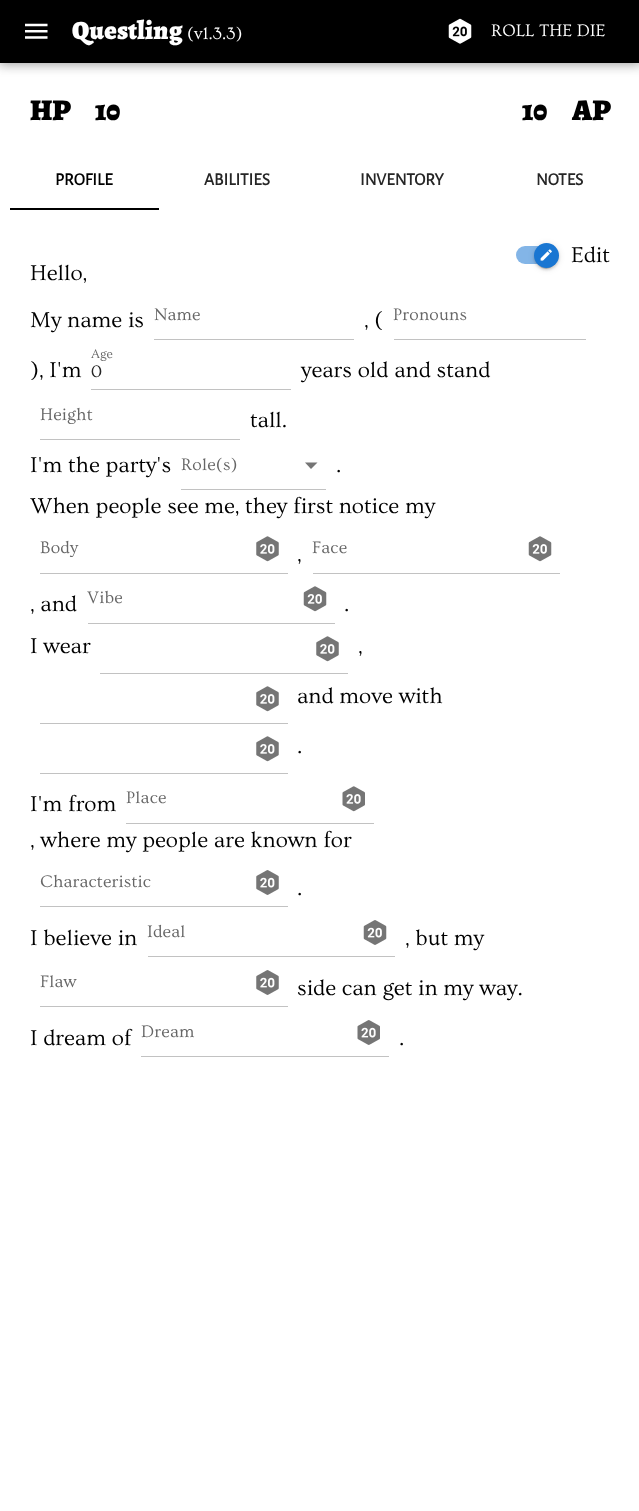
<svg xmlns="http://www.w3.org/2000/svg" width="639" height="1511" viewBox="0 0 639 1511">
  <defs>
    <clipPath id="clip1"><path d="M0 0H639V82H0ZM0 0H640V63H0Z" clip-rule="evenodd"/></clipPath>
    <filter id="blur1" x="-50%" y="-200%" width="200%" height="500%"><feGaussianBlur stdDeviation="6"/></filter>
    <clipPath id="clip2"><path d="M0 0H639V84H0ZM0 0H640V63H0Z" clip-rule="evenodd"/></clipPath>
    <filter id="blur2" x="-50%" y="-200%" width="200%" height="500%"><feGaussianBlur stdDeviation="3"/></filter>
    <filter id="blur3" x="-50%" y="-200%" width="200%" height="500%"><feGaussianBlur stdDeviation="1"/></filter>
    <filter id="blur4" x="-50%" y="-200%" width="200%" height="500%"><feGaussianBlur stdDeviation="0.5"/></filter>
  </defs>
  <rect width="100%" height="100%" fill="#ffffff"/>
  <rect x="0" y="0" width="639" height="63" fill="#000000"/>
  <image x="25" y="23" width="23" height="16" href="img1.png"/>
  <image x="448" y="18" width="24" height="26" href="img2.png"/>
  <g clip-path="url(#clip1)">
    <rect x="0" y="0" width="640" height="63" fill="#000000" fill-opacity="0.24" filter="url(#blur1)"/>
  </g>
  <g clip-path="url(#clip2)">
    <rect x="-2" y="-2" width="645" height="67" fill="#000000" fill-opacity="0.2" filter="url(#blur1)"/>
  </g>
  <text x="72" y="39" font-family="Alegreya" font-size="26.25" font-weight="900" letter-spacing="0.25" fill="#ffffff">Questling</text>
  <text x="187" y="39" font-family="Ovo" font-size="17.5" fill="#ffffff">(v1.3.3)</text>
  <text x="491" y="36" font-family="Ovo" font-size="17.5" fill="#ffffff">ROLL THE DIE</text>
  <text x="30" y="120" font-family="Alegreya" font-size="30" font-weight="900" fill="#000000">HP</text>
  <text x="95" y="120" font-family="Alegreya" font-size="30" font-weight="900" fill="#000000">10</text>
  <text x="522" y="120" font-family="Alegreya" font-size="30" font-weight="900" fill="#000000">10</text>
  <text x="572" y="120" font-family="Alegreya" font-size="30" font-weight="900" fill="#000000">AP</text>
  <text x="55" y="185" font-family="Alegreya Sans SC" font-size="17.5" font-weight="bold" fill="#000000">PROFILE</text>
  <rect x="10" y="208" width="149" height="2" fill="#000000"/>
  <text x="204" y="185" font-family="Alegreya Sans SC" font-size="17.5" font-weight="bold" fill="#262626">ABILITIES</text>
  <text x="360" y="185" font-family="Alegreya Sans SC" font-size="17.5" font-weight="bold" fill="#262626">INVENTORY</text>
  <text x="536" y="185" font-family="Alegreya Sans SC" font-size="17.5" font-weight="bold" fill="#262626">NOTES</text>
  <rect x="516" y="246" width="40" height="18" rx="9" fill="#83b5e7"/>
  <rect x="534" y="244" width="25" height="25" rx="12.5" fill="#000000" fill-opacity="0.12" filter="url(#blur2)"/>
  <rect x="534" y="245" width="25" height="25" rx="12.5" fill="#000000" fill-opacity="0.14" filter="url(#blur3)"/>
  <rect x="536" y="249" width="20" height="20" rx="10" fill="#000000" fill-opacity="0.2" filter="url(#blur4)"/>
  <circle cx="546.5" cy="255.5" r="12.5" fill="#1976d2"/>
  <image x="540" y="249" width="12" height="12" href="img3.png"/>
  <text x="571" y="262" font-family="Ovo" font-size="22.5" fill="#000000">Edit</text>
  <text x="30" y="280" font-family="Ovo" font-size="22.5" fill="#000000">Hello,</text>
  <text x="30" y="327" font-family="Ovo" font-size="22.5" fill="#000000">My name is</text>
  <text x="154" y="320" font-family="Ovo" font-size="17.5" letter-spacing="0.2" fill="#666666">Name</text>
  <rect x="154" y="339" width="200" height="1" fill="#c2c2c2"/>
  <text x="364" y="327" font-family="Ovo" font-size="22.5" fill="#000000">, (</text>
  <text x="393" y="320" font-family="Ovo" font-size="17.5" letter-spacing="0.2" fill="#666666">Pronouns</text>
  <rect x="394" y="339" width="192" height="1" fill="#c2c2c2"/>
  <text x="30" y="377" font-family="Ovo" font-size="22.5" fill="#000000">), I'm</text>
  <text x="91" y="358" font-family="Ovo" font-size="13" fill="#666666">Age</text>
  <text x="91" y="377" font-family="Ovo" font-size="17.5" letter-spacing="0.2" fill="#262626">0</text>
  <rect x="91" y="389" width="200" height="1" fill="#c2c2c2"/>
  <text x="301" y="377" font-family="Ovo" font-size="22.5" fill="#000000">years old and stand</text>
  <text x="40" y="420" font-family="Ovo" font-size="17.5" letter-spacing="0.2" fill="#666666">Height</text>
  <rect x="40" y="439" width="200" height="1" fill="#c2c2c2"/>
  <text x="250" y="427" font-family="Ovo" font-size="22.5" fill="#000000">tall.</text>
  <text x="30" y="472" font-family="Ovo" font-size="22.5" fill="#000000">I'm the party's</text>
  <text x="181" y="470" font-family="Ovo" font-size="17.5" letter-spacing="0.2" fill="#666666">Role(s)</text>
  <path d="M305 462.5H317.5L311 469Z" fill="#757575"/>
  <rect x="181" y="489" width="145" height="1" fill="#c2c2c2"/>
  <text x="336" y="472" font-family="Ovo" font-size="22.5" fill="#000000">.</text>
  <text x="30" y="513" font-family="Ovo" font-size="22.5" fill="#000000">When people see me, they first notice my</text>
  <text x="40" y="553" font-family="Ovo" font-size="17.5" letter-spacing="0.2" fill="#666666">Body</text>
  <image x="256" y="536" width="23" height="26" href="img4.png"/>
  <rect x="40" y="573" width="248" height="1" fill="#c2c2c2"/>
  <text x="312" y="553" font-family="Ovo" font-size="17.5" letter-spacing="0.2" fill="#666666">Face</text>
  <image x="528" y="536" width="24" height="26" href="img5.png"/>
  <rect x="313" y="573" width="247" height="1" fill="#c2c2c2"/>
  <text x="297" y="561" font-family="Ovo" font-size="22.5" fill="#000000">,</text>
  <text x="30" y="611" font-family="Ovo" font-size="22.5" fill="#000000">, and</text>
  <text x="87" y="603" font-family="Ovo" font-size="17.5" letter-spacing="0.2" fill="#666666">Vibe</text>
  <image x="303" y="586" width="24" height="26" href="img5.png"/>
  <rect x="88" y="623" width="247" height="1" fill="#c2c2c2"/>
  <text x="344" y="611" font-family="Ovo" font-size="22.5" fill="#000000">.</text>
  <text x="30" y="653" font-family="Ovo" font-size="22.5" fill="#000000">I wear</text>
  <image x="316" y="636" width="23" height="26" href="img4.png"/>
  <rect x="100" y="673" width="248" height="1" fill="#c2c2c2"/>
  <text x="358" y="653" font-family="Ovo" font-size="22.5" fill="#000000">,</text>
  <image x="256" y="686" width="23" height="26" href="img4.png"/>
  <rect x="40" y="723" width="248" height="1" fill="#c2c2c2"/>
  <text x="297" y="703" font-family="Ovo" font-size="22.5" fill="#000000">and move with</text>
  <image x="256" y="736" width="23" height="26" href="img4.png"/>
  <rect x="40" y="773" width="248" height="1" fill="#c2c2c2"/>
  <text x="297" y="753" font-family="Ovo" font-size="22.5" fill="#000000">.</text>
  <text x="30" y="811" font-family="Ovo" font-size="22.5" fill="#000000">I'm from</text>
  <text x="126" y="803" font-family="Ovo" font-size="17.5" letter-spacing="0.2" fill="#666666">Place</text>
  <image x="342" y="786" width="23" height="26" href="img6.png"/>
  <rect x="126" y="823" width="248" height="1" fill="#c2c2c2"/>
  <text x="30" y="847" font-family="Ovo" font-size="22.5" fill="#000000">, where my people are known for</text>
  <text x="40" y="887" font-family="Ovo" font-size="17.5" letter-spacing="0.2" fill="#666666">Characteristic</text>
  <image x="256" y="870" width="23" height="25" href="img7.png"/>
  <rect x="40" y="906" width="248" height="1" fill="#c2c2c2"/>
  <text x="297" y="895" font-family="Ovo" font-size="22.5" fill="#000000">.</text>
  <text x="30" y="945" font-family="Ovo" font-size="22.5" fill="#000000">I believe in</text>
  <text x="147" y="937" font-family="Ovo" font-size="17.5" letter-spacing="0.2" fill="#666666">Ideal</text>
  <image x="363" y="920" width="24" height="25" href="img8.png"/>
  <rect x="148" y="956" width="247" height="1" fill="#c2c2c2"/>
  <text x="405" y="945" font-family="Ovo" font-size="22.5" fill="#000000">, but my</text>
  <text x="40" y="987" font-family="Ovo" font-size="17.5" letter-spacing="0.2" fill="#666666">Flaw</text>
  <image x="256" y="970" width="23" height="25" href="img7.png"/>
  <rect x="40" y="1006" width="248" height="1" fill="#c2c2c2"/>
  <text x="297" y="995" font-family="Ovo" font-size="22.5" fill="#000000">side can get in my way.</text>
  <text x="30" y="1045" font-family="Ovo" font-size="22.5" fill="#000000">I dream of</text>
  <text x="141" y="1037" font-family="Ovo" font-size="17.5" letter-spacing="0.2" fill="#666666">Dream</text>
  <image x="357" y="1020" width="23" height="25" href="img9.png"/>
  <rect x="141" y="1056" width="248" height="1" fill="#c2c2c2"/>
  <text x="399" y="1045" font-family="Ovo" font-size="22.5" fill="#000000">.</text>
</svg>
